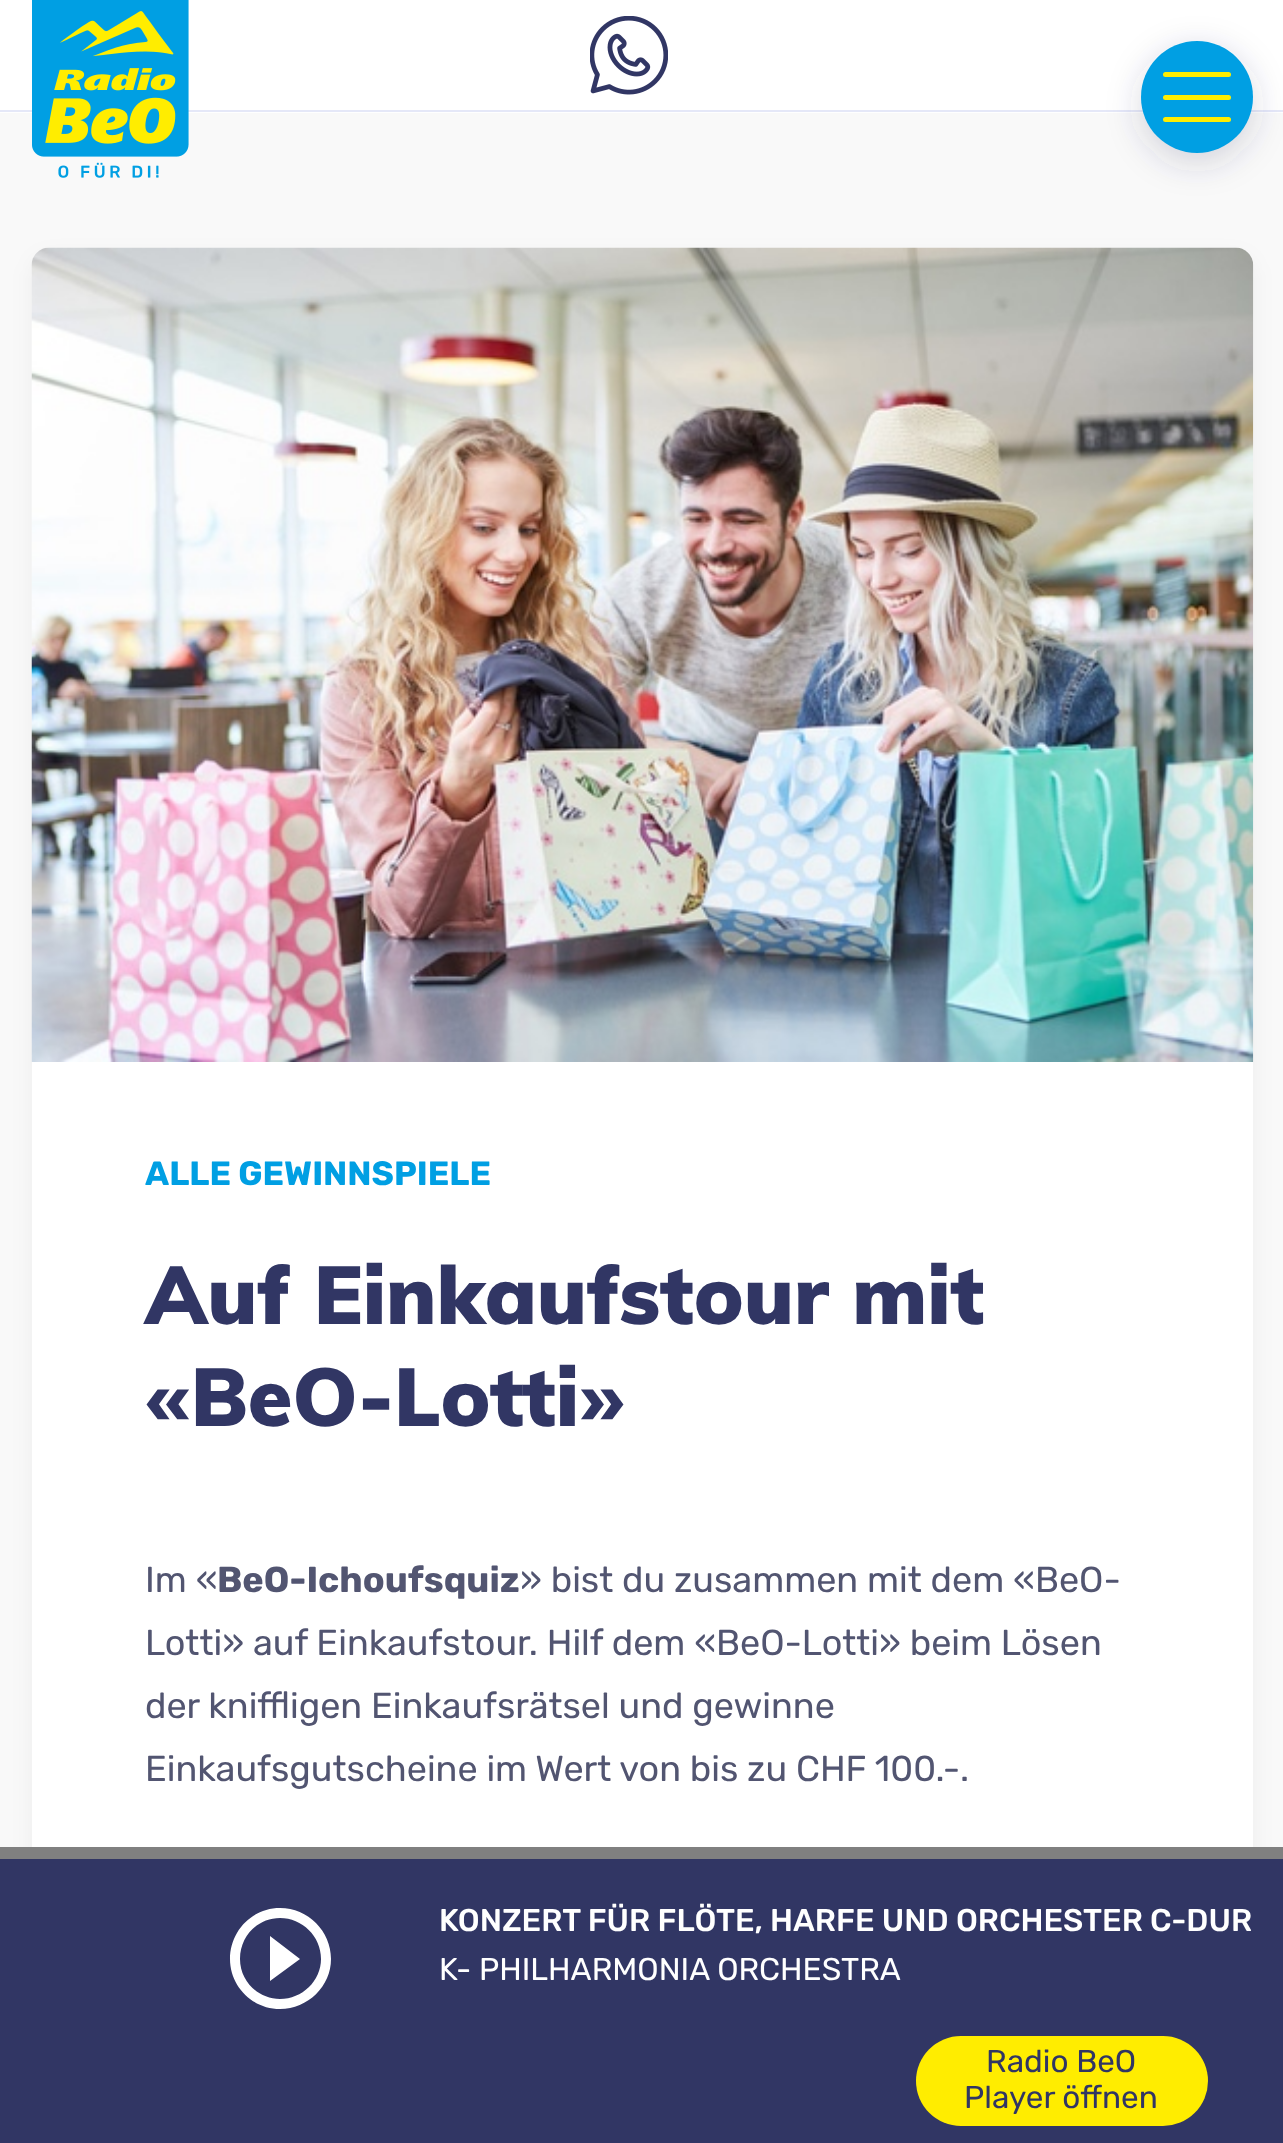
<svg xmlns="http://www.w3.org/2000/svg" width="1283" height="2143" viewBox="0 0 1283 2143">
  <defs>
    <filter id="blur1" x="-50%" y="-200%" width="200%" height="500%"><feGaussianBlur stdDeviation="17"/></filter>
    <filter id="blur2" x="-50%" y="-200%" width="200%" height="500%"><feGaussianBlur stdDeviation="11"/></filter>
  </defs>
  <rect width="100%" height="100%" fill="#f9f9f9"/>
  <rect x="0" y="0" width="1283" height="113" fill="#ffffff"/>
  <rect x="0" y="110" width="1283" height="2" fill="#e5e8f8"/>
  <image x="32" y="0" width="157" height="178" href="img1.png"/>
  <image x="590" y="16" width="78" height="79" href="img2.png"/>
  <rect x="1141" y="50" width="112" height="112" rx="56" fill="#313664" fill-opacity="0.2" filter="url(#blur1)"/>
  <circle cx="1197" cy="97" r="56" fill="#009fe3"/>
  <rect x="1163" y="95" width="68" height="5" rx="2.5" fill="#ffed00"/>
  <rect x="1163" y="72" width="68" height="5" rx="2.5" fill="#ffed00"/>
  <rect x="1163" y="117" width="68" height="5" rx="2.5" fill="#ffed00"/>
  <rect x="32" y="257" width="1221" height="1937" rx="18" fill="#000000" fill-opacity="0.05" filter="url(#blur2)"/>
  <rect x="32" y="248" width="1221" height="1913" rx="18" fill="#ffffff"/>
  <image x="31" y="247" width="1223" height="815" href="img3.png"/>
  <text x="145" y="1185" font-family="Rubik" font-size="33.75" font-weight="bold" fill="#009fe3">ALLE GEWINNSPIELE</text>
  <text x="145" y="1324" font-family="Muli" font-size="81" font-weight="900" fill="#313664">Auf Einkaufstour mit</text>
  <text x="145" y="1426" font-family="Muli" font-size="81" font-weight="900" fill="#313664">«BeO-Lotti»</text>
  <text x="145" y="1592" font-family="Rubik" font-size="36" fill="#525571">Im «</text>
  <text x="217" y="1592" font-family="Rubik" font-size="36" font-weight="bold" fill="#525571">BeO-Ichoufsquiz</text>
  <text x="520" y="1592" font-family="Rubik" font-size="36" fill="#525571">» bist du zusammen mit dem «BeO-</text>
  <text x="145" y="1655" font-family="Rubik" font-size="36" fill="#525571">Lotti» auf Einkaufstour. Hilf dem «BeO-Lotti» beim Lösen</text>
  <text x="145" y="1718" font-family="Rubik" font-size="36" fill="#525571">der kniffligen Einkaufsrätsel und gewinne</text>
  <text x="145" y="1781" font-family="Rubik" font-size="36" fill="#525571">Einkaufsgutscheine im Wert von bis zu CHF 100.-.</text>
  <rect x="0" y="1859" width="1283" height="284" fill="#313664"/>
  <rect x="0" y="1847" width="1283" height="12" fill="#808080"/>
  <path d="M270 1981L300 1959L270 1936ZM280 1908C252 1908 230 1931 230 1959C230 1986 252 2009 280 2009C308 2009 331 1986 331 1959C331 1931 308 1908 280 1908ZM280 1999C258 1999 240 1981 240 1959C240 1936 258 1918 280 1918C302 1918 321 1936 321 1959C321 1981 302 1999 280 1999Z" fill="#ffffff"/>
  <text x="439" y="1931" font-family="Rubik" font-size="31.5" font-weight="500" fill="#ffffff">KONZERT FÜR FLÖTE, HARFE UND ORCHESTER C-DUR</text>
  <text x="439" y="1980" font-family="Rubik" font-size="31.5" fill="#ffffff">K- PHILHARMONIA ORCHESTRA</text>
  <rect x="916" y="2036" width="292" height="90" rx="45" fill="#ffed00"/>
  <text x="986" y="2072" font-family="Rubik" font-size="31.5" fill="#313664">Radio BeO</text>
  <text x="964" y="2108" font-family="Rubik" font-size="31.5" fill="#313664">Player öffnen</text>
</svg>
